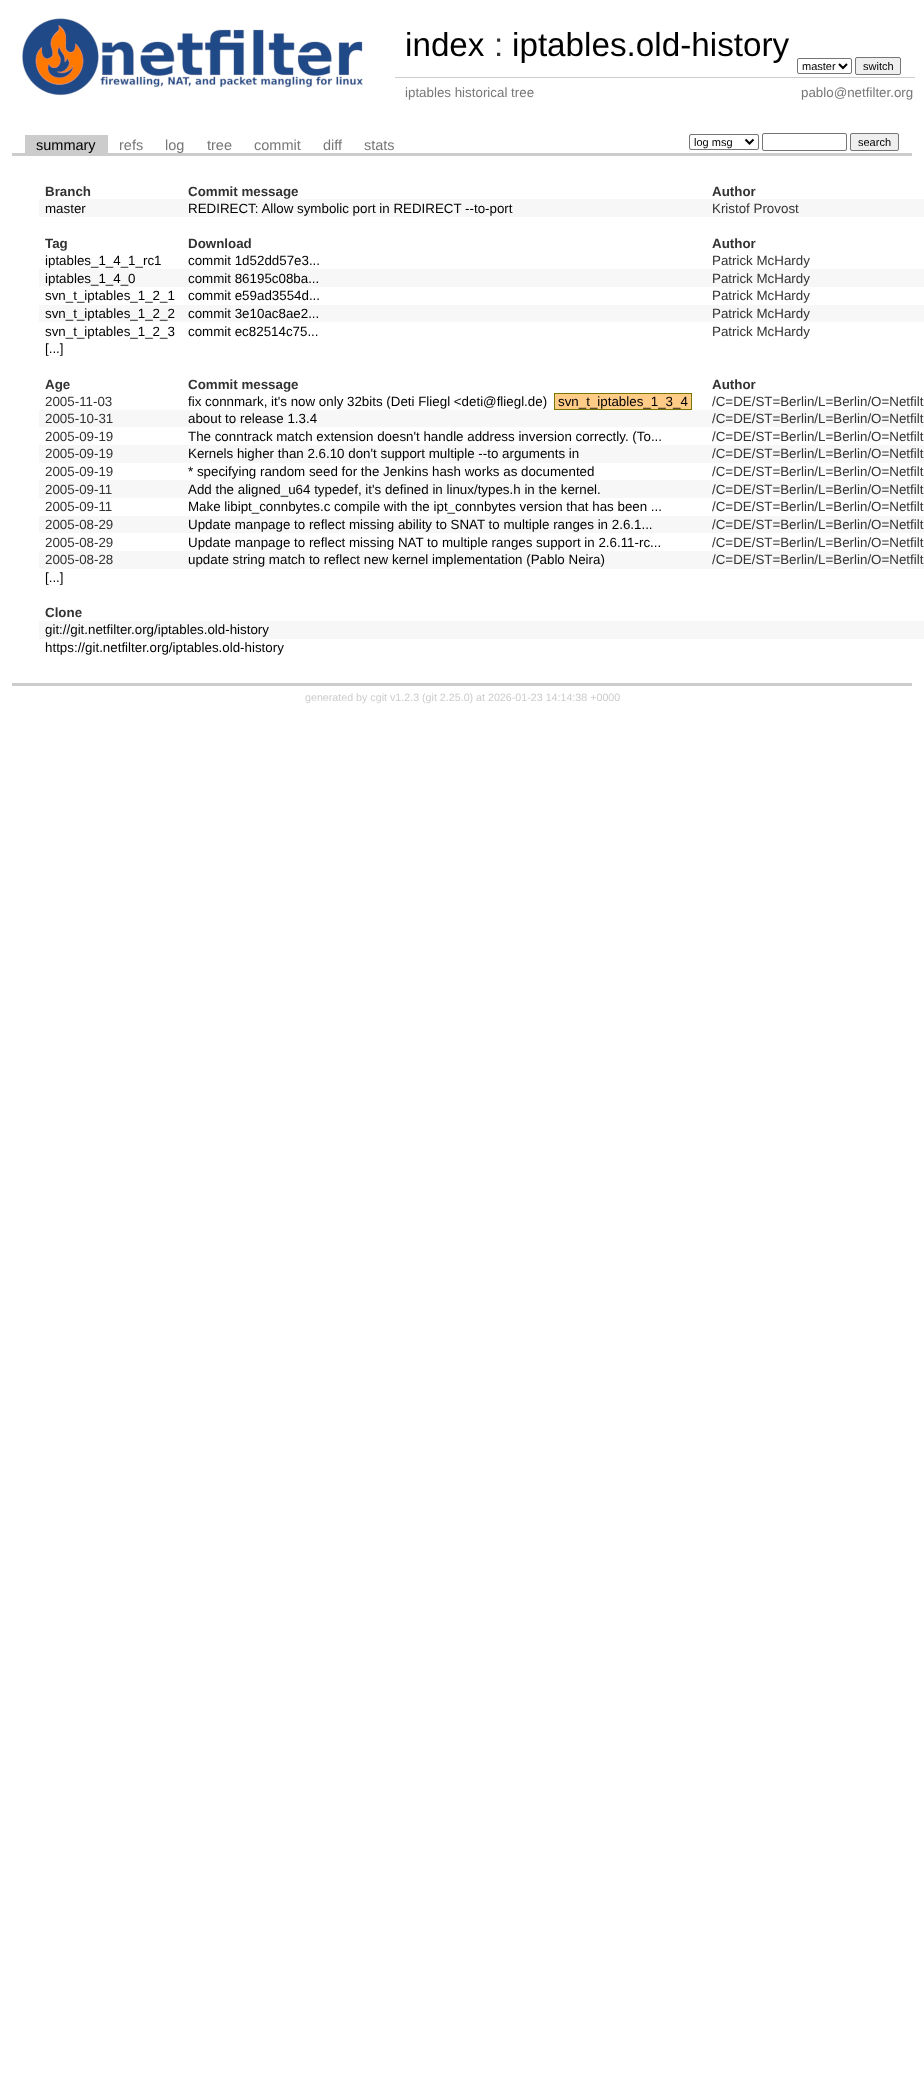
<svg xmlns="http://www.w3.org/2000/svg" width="924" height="2073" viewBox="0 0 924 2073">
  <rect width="100%" height="100%" fill="#ffffff"/>
  <image x="22" y="18" width="341" height="78" href="img1.png"/>
  <text x="405" y="56" font-family="Liberation Sans" font-size="33.25" fill="#000000">index</text>
  <text x="494" y="56" font-family="Liberation Sans" font-size="33.25" fill="#333333">:</text>
  <text x="512" y="56" font-family="Liberation Sans" font-size="33.25" fill="#000000">iptables.old-history</text>
  <rect x="797.5" y="58.5" width="54" height="15" rx="1.5" fill="none" stroke="#767676"/>
  <path d="M839 64L843 68L847 64" fill="none" stroke="#000000" stroke-width="2"/>
  <text x="802" y="70" font-family="Liberation Sans" font-size="11" fill="#000000">master</text>
  <rect x="855.5" y="57.5" width="45" height="17" rx="1.5" fill="#efefef" stroke="#767676"/>
  <text x="863" y="70" font-family="Liberation Sans" font-size="11" fill="#000000">switch</text>
  <text x="405" y="97" font-family="Liberation Sans" font-size="13.35" fill="#777777">iptables historical tree</text>
  <rect x="395" y="77" width="520" height="1" fill="#cccccc"/>
  <text x="801" y="97" font-family="Liberation Sans" font-size="13.35" fill="#777777">pablo@netfilter.org</text>
  <rect x="12" y="153" width="900" height="3" fill="#cccccc"/>
  <rect x="25" y="135" width="83" height="18" fill="#cccccc"/>
  <text x="36" y="150" font-family="Liberation Sans" font-size="14.5" fill="#000000">summary</text>
  <text x="119" y="150" font-family="Liberation Sans" font-size="14.5" fill="#777777">refs</text>
  <text x="165" y="150" font-family="Liberation Sans" font-size="14.5" fill="#777777">log</text>
  <text x="207" y="150" font-family="Liberation Sans" font-size="14.5" fill="#777777">tree</text>
  <text x="254" y="150" font-family="Liberation Sans" font-size="14.5" fill="#777777">commit</text>
  <text x="323" y="150" font-family="Liberation Sans" font-size="14.5" fill="#777777">diff</text>
  <text x="364" y="150" font-family="Liberation Sans" font-size="14.5" fill="#777777">stats</text>
  <rect x="689.5" y="134.5" width="69" height="15" rx="1.5" fill="none" stroke="#767676"/>
  <path d="M745.5 139.5L749.5 143.5L753.5 139.5" fill="none" stroke="#000000" stroke-width="2"/>
  <text x="694" y="146" font-family="Liberation Sans" font-size="11" fill="#000000">log msg</text>
  <rect x="762.5" y="133.5" width="84" height="17" rx="1.5" fill="none" stroke="#767676"/>
  <rect x="850.5" y="133.5" width="48" height="17" rx="1.5" fill="#efefef" stroke="#767676"/>
  <text x="858" y="146" font-family="Liberation Sans" font-size="11" fill="#000000">search</text>
  <rect x="12" y="683" width="900" height="3" fill="#cccccc"/>
  <text x="45" y="196" font-family="Liberation Sans" font-size="13.35" font-weight="bold" fill="#333333">Branch</text>
  <text x="188" y="196" font-family="Liberation Sans" font-size="13.35" font-weight="bold" fill="#333333">Commit message</text>
  <text x="712" y="196" font-family="Liberation Sans" font-size="13.35" font-weight="bold" fill="#333333">Author</text>
  <rect x="39" y="199" width="885" height="18" fill="#f7f7f7"/>
  <text x="45" y="213" font-family="Liberation Sans" font-size="13.35" fill="#000000">master</text>
  <text x="188" y="213" font-family="Liberation Sans" font-size="13.35" fill="#000000">REDIRECT: Allow symbolic port in REDIRECT --to-port</text>
  <text x="712" y="213" font-family="Liberation Sans" font-size="13.35" fill="#333333">Kristof Provost</text>
  <text x="45" y="248" font-family="Liberation Sans" font-size="13.35" font-weight="bold" fill="#333333">Tag</text>
  <text x="188" y="248" font-family="Liberation Sans" font-size="13.35" font-weight="bold" fill="#333333">Download</text>
  <text x="712" y="248" font-family="Liberation Sans" font-size="13.35" font-weight="bold" fill="#333333">Author</text>
  <text x="45" y="265" font-family="Liberation Sans" font-size="13.35" fill="#000000">iptables_1_4_1_rc1</text>
  <text x="188" y="265" font-family="Liberation Sans" font-size="13.35" fill="#000000">commit 1d52dd57e3...</text>
  <text x="712" y="265" font-family="Liberation Sans" font-size="13.35" fill="#333333">Patrick McHardy</text>
  <rect x="39" y="269" width="885" height="18" fill="#f7f7f7"/>
  <text x="45" y="283" font-family="Liberation Sans" font-size="13.35" fill="#000000">iptables_1_4_0</text>
  <text x="188" y="283" font-family="Liberation Sans" font-size="13.35" fill="#000000">commit 86195c08ba...</text>
  <text x="712" y="283" font-family="Liberation Sans" font-size="13.35" fill="#333333">Patrick McHardy</text>
  <text x="45" y="300" font-family="Liberation Sans" font-size="13.35" fill="#000000">svn_t_iptables_1_2_1</text>
  <text x="188" y="300" font-family="Liberation Sans" font-size="13.35" fill="#000000">commit e59ad3554d...</text>
  <text x="712" y="300" font-family="Liberation Sans" font-size="13.35" fill="#333333">Patrick McHardy</text>
  <rect x="39" y="305" width="885" height="17" fill="#f7f7f7"/>
  <text x="45" y="318" font-family="Liberation Sans" font-size="13.35" fill="#000000">svn_t_iptables_1_2_2</text>
  <text x="188" y="318" font-family="Liberation Sans" font-size="13.35" fill="#000000">commit 3e10ac8ae2...</text>
  <text x="712" y="318" font-family="Liberation Sans" font-size="13.35" fill="#333333">Patrick McHardy</text>
  <text x="45" y="336" font-family="Liberation Sans" font-size="13.35" fill="#000000">svn_t_iptables_1_2_3</text>
  <text x="188" y="336" font-family="Liberation Sans" font-size="13.35" fill="#000000">commit ec82514c75...</text>
  <text x="712" y="336" font-family="Liberation Sans" font-size="13.35" fill="#333333">Patrick McHardy</text>
  <text x="45" y="353" font-family="Liberation Sans" font-size="13.35" fill="#000000">[...]</text>
  <text x="45" y="389" font-family="Liberation Sans" font-size="13.35" font-weight="bold" fill="#333333">Age</text>
  <text x="188" y="389" font-family="Liberation Sans" font-size="13.35" font-weight="bold" fill="#333333">Commit message</text>
  <text x="712" y="389" font-family="Liberation Sans" font-size="13.35" font-weight="bold" fill="#333333">Author</text>
  <text x="45" y="406" font-family="Liberation Sans" font-size="13.35" fill="#333333">2005-11-03</text>
  <text x="188" y="406" font-family="Liberation Sans" font-size="13.35" fill="#000000">fix connmark, it's now only 32bits (Deti Fliegl &lt;deti@fliegl.de)</text>
  <rect x="554.5" y="393.5" width="137" height="16" fill="#ffcc88" stroke="#777700"/>
  <text x="558" y="406" font-family="Liberation Sans" font-size="13.35" fill="#000000">svn_t_iptables_1_3_4</text>
  <text x="712" y="406" font-family="Liberation Sans" font-size="13.35" fill="#333333">/C=DE/ST=Berlin/L=Berlin/O=Netfilt</text>
  <rect x="39" y="410" width="885" height="17" fill="#f7f7f7"/>
  <text x="45" y="423" font-family="Liberation Sans" font-size="13.35" fill="#333333">2005-10-31</text>
  <text x="188" y="423" font-family="Liberation Sans" font-size="13.35" fill="#000000">about to release 1.3.4</text>
  <text x="712" y="423" font-family="Liberation Sans" font-size="13.35" fill="#333333">/C=DE/ST=Berlin/L=Berlin/O=Netfilt</text>
  <text x="45" y="441" font-family="Liberation Sans" font-size="13.35" fill="#333333">2005-09-19</text>
  <text x="188" y="441" font-family="Liberation Sans" font-size="13.35" fill="#000000">The conntrack match extension doesn't handle address inversion correctly. (To...</text>
  <text x="712" y="441" font-family="Liberation Sans" font-size="13.35" fill="#333333">/C=DE/ST=Berlin/L=Berlin/O=Netfilt</text>
  <rect x="39" y="445" width="885" height="18" fill="#f7f7f7"/>
  <text x="45" y="458" font-family="Liberation Sans" font-size="13.35" fill="#333333">2005-09-19</text>
  <text x="188" y="458" font-family="Liberation Sans" font-size="13.35" fill="#000000">Kernels higher than 2.6.10 don't support multiple --to arguments in</text>
  <text x="712" y="458" font-family="Liberation Sans" font-size="13.35" fill="#333333">/C=DE/ST=Berlin/L=Berlin/O=Netfilt</text>
  <text x="45" y="476" font-family="Liberation Sans" font-size="13.35" fill="#333333">2005-09-19</text>
  <text x="188" y="476" font-family="Liberation Sans" font-size="13.35" fill="#000000">* specifying random seed for the Jenkins hash works as documented</text>
  <text x="712" y="476" font-family="Liberation Sans" font-size="13.35" fill="#333333">/C=DE/ST=Berlin/L=Berlin/O=Netfilt</text>
  <rect x="39" y="480" width="885" height="18" fill="#f7f7f7"/>
  <text x="45" y="494" font-family="Liberation Sans" font-size="13.35" fill="#333333">2005-09-11</text>
  <text x="188" y="494" font-family="Liberation Sans" font-size="13.35" fill="#000000">Add the aligned_u64 typedef, it's defined in linux/types.h in the kernel.</text>
  <text x="712" y="494" font-family="Liberation Sans" font-size="13.35" fill="#333333">/C=DE/ST=Berlin/L=Berlin/O=Netfilt</text>
  <text x="45" y="511" font-family="Liberation Sans" font-size="13.35" fill="#333333">2005-09-11</text>
  <text x="188" y="511" font-family="Liberation Sans" font-size="13.35" fill="#000000">Make libipt_connbytes.c compile with the ipt_connbytes version that has been ...</text>
  <text x="712" y="511" font-family="Liberation Sans" font-size="13.35" fill="#333333">/C=DE/ST=Berlin/L=Berlin/O=Netfilt</text>
  <rect x="39" y="516" width="885" height="17" fill="#f7f7f7"/>
  <text x="45" y="529" font-family="Liberation Sans" font-size="13.35" fill="#333333">2005-08-29</text>
  <text x="188" y="529" font-family="Liberation Sans" font-size="13.35" fill="#000000">Update manpage to reflect missing ability to SNAT to multiple ranges in 2.6.1...</text>
  <text x="712" y="529" font-family="Liberation Sans" font-size="13.35" fill="#333333">/C=DE/ST=Berlin/L=Berlin/O=Netfilt</text>
  <text x="45" y="547" font-family="Liberation Sans" font-size="13.35" fill="#333333">2005-08-29</text>
  <text x="188" y="547" font-family="Liberation Sans" font-size="13.35" fill="#000000">Update manpage to reflect missing NAT to multiple ranges support in 2.6.11-rc...</text>
  <text x="712" y="547" font-family="Liberation Sans" font-size="13.35" fill="#333333">/C=DE/ST=Berlin/L=Berlin/O=Netfilt</text>
  <rect x="39" y="551" width="885" height="18" fill="#f7f7f7"/>
  <text x="45" y="564" font-family="Liberation Sans" font-size="13.35" fill="#333333">2005-08-28</text>
  <text x="188" y="564" font-family="Liberation Sans" font-size="13.35" fill="#000000">update string match to reflect new kernel implementation (Pablo Neira)</text>
  <text x="712" y="564" font-family="Liberation Sans" font-size="13.35" fill="#333333">/C=DE/ST=Berlin/L=Berlin/O=Netfilt</text>
  <text x="45" y="582" font-family="Liberation Sans" font-size="13.35" fill="#000000">[...]</text>
  <text x="45" y="617" font-family="Liberation Sans" font-size="13.35" font-weight="bold" fill="#333333">Clone</text>
  <rect x="39" y="621" width="885" height="18" fill="#f7f7f7"/>
  <text x="45" y="634" font-family="Liberation Sans" font-size="13.35" fill="#000000">git://git.netfilter.org/iptables.old-history</text>
  <text x="45" y="652" font-family="Liberation Sans" font-size="13.35" fill="#000000">https://git.netfilter.org/iptables.old-history</text>
  <text x="305" y="701" font-family="Liberation Sans" font-size="10.7" fill="#cccccc">generated by cgit v1.2.3 (git 2.25.0) at 2026-01-23 14:14:38 +0000</text>
</svg>
